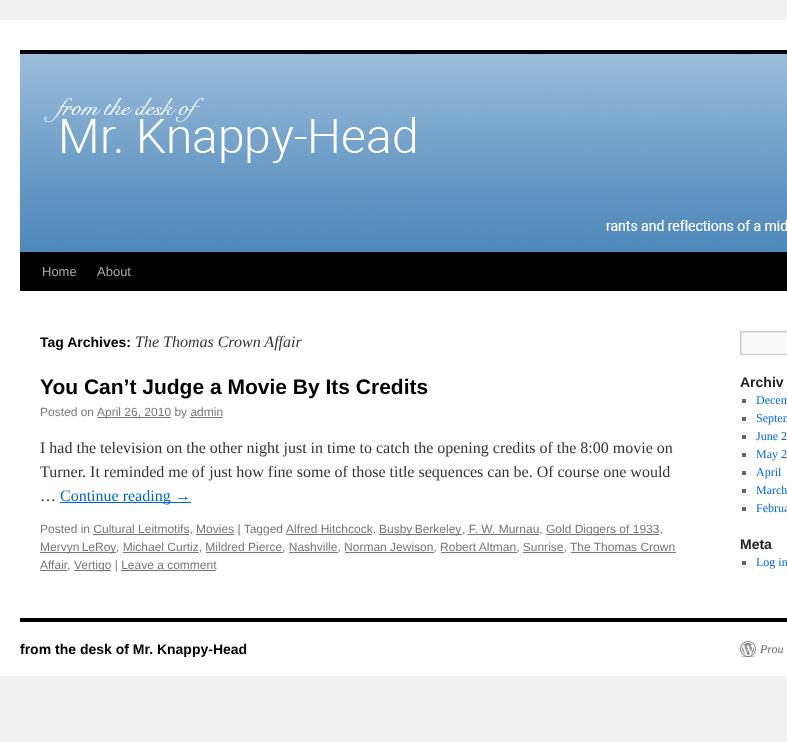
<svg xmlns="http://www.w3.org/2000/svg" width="787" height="742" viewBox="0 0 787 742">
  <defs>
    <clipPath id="clip1"><rect x="741" y="332" width="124" height="22"/></clipPath>
  </defs>
  <rect width="100%" height="100%" fill="#f1f1f1"/>
  <rect x="0" y="20" width="787" height="656" fill="#ffffff"/>
  <rect x="20" y="50" width="767" height="4" fill="#000000"/>
  <rect x="20" y="252" width="767" height="39" fill="#000000"/>
  <image x="20" y="54" width="767" height="198" href="img1.png"/>
  <text x="42" y="276" font-family="Liberation Sans" font-size="13" fill="#aaaaaa">Home</text>
  <text x="97" y="276" font-family="Liberation Sans" font-size="13" fill="#aaaaaa">About</text>
  <text x="40" y="347" font-family="Liberation Sans" font-size="14" font-weight="bold" fill="#000000">Tag Archives:</text>
  <text x="135" y="347" font-family="Liberation Serif" font-size="16" font-style="italic" fill="#333333">The Thomas Crown Affair</text>
  <text x="40" y="394" font-family="Liberation Sans" font-size="21" font-weight="bold" fill="#000000">You Can’t Judge a Movie By Its Credits</text>
  <text x="40" y="416" font-family="Liberation Sans" font-size="12" fill="#777777">Posted on</text>
  <rect x="97" y="417" width="74" height="1" fill="#777777"/>
  <text x="97" y="416" font-family="Liberation Sans" font-size="12" fill="#777777">April 26, 2010 by admin</text>
  <rect x="190" y="417" width="33" height="1" fill="#777777"/>
  <text x="40" y="453" font-family="Liberation Serif" font-size="16" fill="#333333">I had the television on the other night just in time to catch the opening credits of the 8:00 movie on</text>
  <text x="40" y="477" font-family="Liberation Serif" font-size="16" fill="#333333">Turner. It reminded me of just how fine some of those title sequences can be. Of course one would</text>
  <text x="40" y="501" font-family="Liberation Serif" font-size="16" fill="#333333">…</text>
  <rect x="60" y="502" width="131" height="1" fill="#0066cc"/>
  <text x="60" y="501" font-family="Liberation Serif" font-size="16" fill="#0066cc">Continue reading →</text>
  <text x="40" y="533" font-family="Liberation Sans" font-size="12" fill="#777777">Posted in Cultural Leitmotifs, Movies | Tagged</text>
  <rect x="93" y="534" width="96" height="1" fill="#777777"/>
  <rect x="196" y="534" width="38" height="1" fill="#777777"/>
  <rect x="286" y="534" width="86" height="1" fill="#777777"/>
  <text x="286" y="533" font-family="Liberation Sans" font-size="12" fill="#777777">Alfred Hitchcock,</text>
  <rect x="379" y="534" width="83" height="1" fill="#777777"/>
  <text x="379" y="533" word-spacing="-1" font-family="Liberation Sans" font-size="12" fill="#777777">Busby Berkeley</text>
  <text x="462" y="533" font-family="Liberation Sans" font-size="12" fill="#777777">, F. W. Murnau,</text>
  <rect x="468" y="534" width="71" height="1" fill="#777777"/>
  <rect x="546" y="534" width="113" height="1" fill="#777777"/>
  <text x="546" y="533" font-family="Liberation Sans" font-size="12" fill="#777777">Gold Diggers of 1933,</text>
  <rect x="40" y="552" width="76" height="1" fill="#777777"/>
  <text x="40" y="551" word-spacing="-1" font-family="Liberation Sans" font-size="12" fill="#777777">Mervyn LeRoy</text>
  <text x="116" y="551" font-family="Liberation Sans" font-size="12" fill="#777777">, Michael Curtiz, Mildred Pierce, Nashville, Norman Jewison, Robert Altman, Sunrise, The Thomas Crown</text>
  <rect x="123" y="552" width="76" height="1" fill="#777777"/>
  <rect x="206" y="552" width="77" height="1" fill="#777777"/>
  <rect x="289" y="552" width="49" height="1" fill="#777777"/>
  <rect x="345" y="552" width="89" height="1" fill="#777777"/>
  <rect x="441" y="552" width="76" height="1" fill="#777777"/>
  <rect x="523" y="552" width="41" height="1" fill="#777777"/>
  <rect x="571" y="552" width="105" height="1" fill="#777777"/>
  <text x="40" y="569" font-family="Liberation Sans" font-size="12" fill="#777777">Affair</text>
  <text x="67" y="569" font-family="Liberation Sans" font-size="12" fill="#777777">,</text>
  <rect x="40" y="570" width="27" height="1" fill="#777777"/>
  <rect x="74" y="570" width="37" height="1" fill="#777777"/>
  <text x="74" y="569" font-family="Liberation Sans" font-size="12" fill="#777777">Vertigo | Leave a comment</text>
  <rect x="121" y="570" width="95" height="1" fill="#777777"/>
  <rect x="742" y="333" width="45" height="21" fill="#f9f9f9"/>
  <g clip-path="url(#clip1)">
    <path d="M642 233H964V453H642ZM742 333H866V355H742Z" fill="#e0e0e0" fill-rule="evenodd"/>
  </g>
  <rect x="740.5" y="331.5" width="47" height="23" fill="none" stroke="#cccccc"/>
  <text x="740" y="387" font-family="Liberation Sans" font-size="14" font-weight="bold" fill="#222222">Archiv</text>
  <rect x="742" y="399" width="4" height="4" fill="#666666"/>
  <text x="756" y="404" font-family="Liberation Serif" font-size="12" fill="#0066cc">Decem</text>
  <rect x="742" y="417" width="4" height="4" fill="#666666"/>
  <text x="756" y="422" font-family="Liberation Serif" font-size="12" fill="#0066cc">Septem</text>
  <rect x="742" y="435" width="4" height="4" fill="#666666"/>
  <text x="756" y="440" font-family="Liberation Serif" font-size="12" fill="#0066cc">June 2</text>
  <rect x="742" y="453" width="4" height="4" fill="#666666"/>
  <text x="756" y="458" font-family="Liberation Serif" font-size="12" fill="#0066cc">May 2</text>
  <rect x="742" y="471" width="4" height="4" fill="#666666"/>
  <text x="756" y="476" font-family="Liberation Serif" font-size="12" fill="#0066cc">April</text>
  <rect x="742" y="489" width="4" height="4" fill="#666666"/>
  <text x="756" y="494" font-family="Liberation Serif" font-size="12" fill="#0066cc">March</text>
  <rect x="742" y="507" width="4" height="4" fill="#666666"/>
  <text x="756" y="512" font-family="Liberation Serif" font-size="12" fill="#0066cc">Februa</text>
  <text x="740" y="549" font-family="Liberation Sans" font-size="14" font-weight="bold" fill="#222222">Meta</text>
  <rect x="742" y="561" width="4" height="4" fill="#666666"/>
  <text x="756" y="566" font-family="Liberation Serif" font-size="12" fill="#0066cc">Log in</text>
  <rect x="20" y="618" width="767" height="4" fill="#000000"/>
  <text x="20" y="654" font-family="Liberation Sans" font-size="14" font-weight="bold" fill="#000000">from the desk of Mr. Knappy-Head</text>
  <image x="740" y="641" width="16" height="16" href="img2.png"/>
  <text x="760" y="653" font-family="Liberation Serif" font-size="12" font-style="italic" fill="#666666">Prou</text>
</svg>
